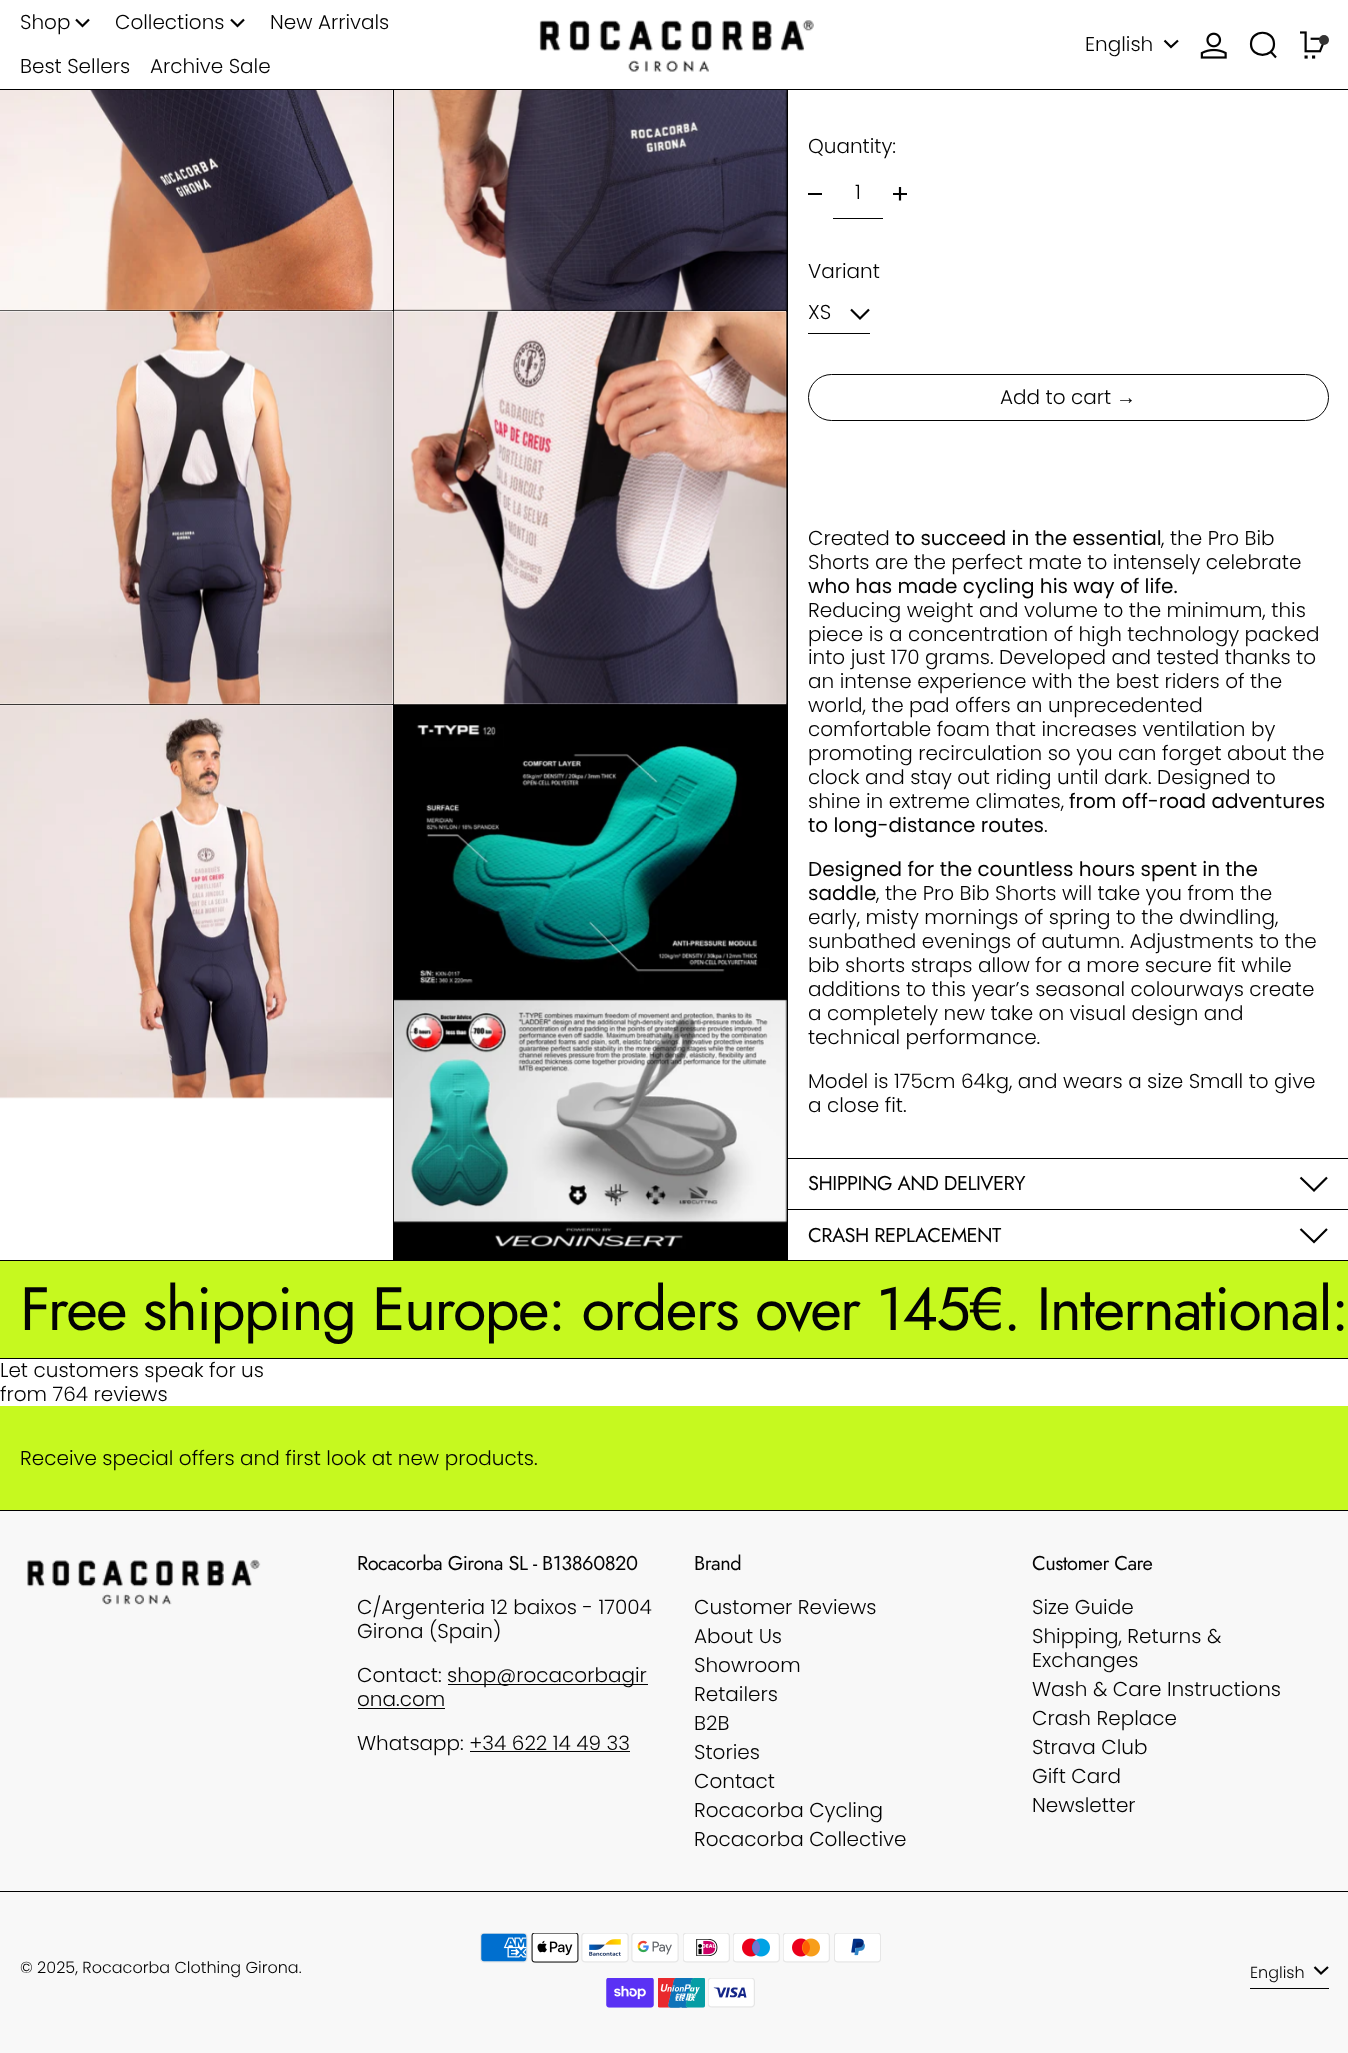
<svg xmlns="http://www.w3.org/2000/svg" width="1348" height="2053" viewBox="0 0 1348 2053">
  <rect width="100%" height="100%" fill="#ffffff"/>
  <rect x="0" y="89" width="1348" height="1" fill="#000000"/>
  <text x="20" y="29" font-family="Poppins" font-size="20" font-weight="300" fill="#030303">Shop</text>
  <path d="M76 19.5L82.5 26L89 19.5" fill="none" stroke="#030303" stroke-width="2.2"/>
  <text x="115" y="29" font-family="Poppins" font-size="20" font-weight="300" fill="#030303">Collections</text>
  <path d="M231 19.5L237.5 26L244 19.5" fill="none" stroke="#030303" stroke-width="2.2"/>
  <text x="270" y="29" font-family="Poppins" font-size="20" font-weight="300" fill="#030303">New Arrivals</text>
  <text x="20" y="73" font-family="Poppins" font-size="20" font-weight="300" fill="#030303">Best Sellers</text>
  <text x="150" y="73" font-family="Poppins" font-size="20" font-weight="300" fill="#030303">Archive Sale</text>
  <image x="539" y="20" width="275" height="52" href="img1.png"/>
  <text x="1085" y="51" font-family="Poppins" font-size="20" font-weight="300" fill="#030303">English</text>
  <path d="M1164.5 40.5L1171 47L1178 40.5" fill="none" stroke="#030303" stroke-width="2.2"/>
  <image x="1200" y="32" width="27" height="27" href="img2.png"/>
  <path d="M1251 44C1251 58.5 1274 58.5 1274 44C1274 29 1251 29 1251 44ZM1270.5 51.5L1276 57.5" fill="none" stroke="#030303" stroke-width="2.2"/>
  <image x="1300" y="31" width="24" height="28" href="img3.png"/>
  <circle cx="1324" cy="40" r="5" fill="#343333"/>
  <rect x="0" y="90" width="788" height="1170" fill="#000000"/>
  <rect x="0" y="1260" width="1348" height="1" fill="#000000"/>
  <rect x="0" y="90" width="393" height="220" fill="#ffffff"/>
  <image x="0" y="90" width="393" height="221" href="img4.png"/>
  <image x="394" y="90" width="393" height="221" href="img5.png"/>
  <rect x="0" y="311" width="393" height="393" fill="#ffffff"/>
  <image x="0" y="311" width="393" height="394" href="img6.png"/>
  <rect x="394" y="311" width="392" height="393" fill="#ffffff"/>
  <image x="393" y="311" width="394" height="394" href="img7.png"/>
  <rect x="0" y="705" width="393" height="555" fill="#ffffff"/>
  <image x="0" y="705" width="393" height="394" href="img8.png"/>
  <image x="394" y="705" width="393" height="555" href="img9.png"/>
  <text x="808" y="153" font-family="Poppins" font-size="20" font-weight="300" fill="#030303">Quantity:</text>
  <rect x="808" y="193" width="14" height="2" fill="#030303"/>
  <rect x="833" y="218" width="50" height="1" fill="#030303"/>
  <text x="855" y="199" font-family="Poppins" font-size="20" font-weight="300" fill="#030303">1</text>
  <path d="M900 187V200.5M893 194H907" fill="none" stroke="#030303" stroke-width="2.2"/>
  <text x="808" y="278" font-family="Poppins" font-size="20" font-weight="300" fill="#030303">Variant</text>
  <rect x="808" y="333" width="62" height="1" fill="#030303"/>
  <text x="808" y="319" font-family="Poppins" font-size="20" font-weight="300" fill="#030303">XS</text>
  <path d="M851 309.5L860 318.5L869 309.5" fill="none" stroke="#030303" stroke-width="2.2"/>
  <rect x="808.5" y="374.5" width="520" height="46" rx="23" fill="none" stroke="#030303"/>
  <text x="1000" y="404" font-family="Poppins" font-size="20" font-weight="300" fill="#030303">Add to cart</text>
  <text x="1116" y="404" font-family="Liberation Sans" font-size="20" fill="#030303">→</text>
  <text x="808" y="545" font-family="Poppins" font-size="20" font-weight="300" fill="#030303">Created</text>
  <text x="895" y="545" font-family="Poppins" font-size="20" fill="#030303">to succeed in the essential</text>
  <text x="1161" y="545" font-family="Poppins" font-size="20" font-weight="300" fill="#030303">, the Pro Bib</text>
  <text x="808" y="569" font-family="Poppins" font-size="20" font-weight="300" fill="#030303">Shorts are the perfect mate to intensely celebrate</text>
  <text x="808" y="593" font-family="Poppins" font-size="20" fill="#030303">who has made cycling his way of life.</text>
  <text x="808" y="617" font-family="Poppins" font-size="20" font-weight="300" fill="#030303">Reducing weight and volume to the minimum, this</text>
  <text x="808" y="641" font-family="Poppins" font-size="20" font-weight="300" fill="#030303">piece is a concentration of high technology packed</text>
  <text x="808" y="664" font-family="Poppins" font-size="20" font-weight="300" fill="#030303">into just 170 grams. Developed and tested thanks to</text>
  <text x="808" y="688" font-family="Poppins" font-size="20" font-weight="300" fill="#030303">an intense experience with the best riders of the</text>
  <text x="808" y="712" font-family="Poppins" font-size="20" font-weight="300" fill="#030303">world, the pad offers an unprecedented</text>
  <text x="808" y="736" font-family="Poppins" font-size="20" font-weight="300" fill="#030303">comfortable foam that increases ventilation by</text>
  <text x="808" y="760" font-family="Poppins" font-size="20" font-weight="300" fill="#030303">promoting recirculation so you can forget about the</text>
  <text x="808" y="784" font-family="Poppins" font-size="20" font-weight="300" fill="#030303">clock and stay out riding until dark. Designed to</text>
  <text x="808" y="808" font-family="Poppins" font-size="20" font-weight="300" fill="#030303">shine in extreme climates,</text>
  <text x="1069" y="808" font-family="Poppins" font-size="20" fill="#030303">from off-road adventures</text>
  <text x="808" y="832" font-family="Poppins" font-size="20" fill="#030303">to long-distance routes</text>
  <text x="1044" y="832" font-family="Poppins" font-size="20" font-weight="300" fill="#030303">.</text>
  <text x="808" y="876" font-family="Poppins" font-size="20" fill="#030303">Designed for the countless hours spent in the</text>
  <text x="808" y="900" font-family="Poppins" font-size="20" fill="#030303">saddle</text>
  <text x="876" y="900" font-family="Poppins" font-size="20" font-weight="300" fill="#030303">, the Pro Bib Shorts will take you from the</text>
  <text x="808" y="924" font-family="Poppins" font-size="20" font-weight="300" fill="#030303">early, misty mornings of spring to the dwindling,</text>
  <text x="808" y="948" font-family="Poppins" font-size="20" font-weight="300" fill="#030303">sunbathed evenings of autumn. Adjustments to the</text>
  <text x="808" y="972" font-family="Poppins" font-size="20" font-weight="300" fill="#030303">bib shorts straps allow for a more secure fit while</text>
  <text x="808" y="996" font-family="Poppins" font-size="20" font-weight="300" fill="#030303">additions to this year’s seasonal colourways create</text>
  <text x="808" y="1020" font-family="Poppins" font-size="20" font-weight="300" fill="#030303">a completely new take on visual design and</text>
  <text x="808" y="1044" font-family="Poppins" font-size="20" font-weight="300" fill="#030303">technical performance.</text>
  <text x="808" y="1088" font-family="Poppins" font-size="20" font-weight="300" fill="#030303">Model is 175cm 64kg, and wears a size Small to give</text>
  <text x="808" y="1112" font-family="Poppins" font-size="20" font-weight="300" fill="#030303">a close fit.</text>
  <rect x="788" y="1158" width="560" height="1" fill="#000000"/>
  <rect x="788" y="1209" width="560" height="1" fill="#000000"/>
  <text x="808" y="1190" font-family="Jost" font-size="20" letter-spacing="-0.5" fill="#030303">SHIPPING AND DELIVERY</text>
  <path d="M1300.5 1177.5L1314 1190.5L1327 1177.5" fill="none" stroke="#030303" stroke-width="2.2"/>
  <text x="808" y="1242" font-family="Jost" font-size="20" letter-spacing="-0.5" fill="#030303">CRASH REPLACEMENT</text>
  <path d="M1300.5 1229L1314 1242L1327 1229" fill="none" stroke="#030303" stroke-width="2.2"/>
  <rect x="0" y="1261" width="1348" height="97" fill="#c6f91f"/>
  <rect x="0" y="1358" width="1348" height="1" fill="#000000"/>
  <text x="20" y="1330" font-family="Jost" font-size="61" letter-spacing="-1.53" fill="#030303">Free shipping Europe: orders over 145€. International:</text>
  <text x="0" y="1377" font-family="Poppins" font-size="20" font-weight="300" fill="#030303">Let customers speak for us</text>
  <text x="0" y="1401" font-family="Poppins" font-size="20" font-weight="300" fill="#030303">from 764 reviews</text>
  <rect x="0" y="1892" width="1348" height="161" fill="#f8f8f8"/>
  <rect x="0" y="1406" width="1348" height="104" fill="#c6f91f"/>
  <rect x="0" y="1510" width="1348" height="1" fill="#000000"/>
  <text x="20" y="1465" font-family="Poppins" font-size="20" font-weight="300" fill="#030303">Receive special offers and first look at new products.</text>
  <rect x="0" y="1891" width="1348" height="1" fill="#000000"/>
  <rect x="0" y="1511" width="1348" height="380" fill="#f8f8f8"/>
  <image x="27" y="1559" width="234" height="46" href="img10.png"/>
  <text x="357" y="1570" font-family="Jost" font-size="20" letter-spacing="-0.5" fill="#030303">Rocacorba Girona SL - B13860820</text>
  <text x="357" y="1614" font-family="Poppins" font-size="20" font-weight="300" fill="#030303">C/Argenteria 12 baixos - 17004</text>
  <text x="357" y="1638" font-family="Poppins" font-size="20" font-weight="300" fill="#030303">Girona (Spain)</text>
  <text x="357" y="1682" font-family="Poppins" font-size="20" font-weight="300" fill="#030303">Contact:</text>
  <rect x="448" y="1684" width="200" height="1" fill="#030303"/>
  <text x="447" y="1682" font-family="Poppins" font-size="20" font-weight="300" fill="#030303">shop@rocacorbagir</text>
  <text x="357" y="1706" font-family="Poppins" font-size="20" font-weight="300" fill="#030303">ona.com</text>
  <rect x="358" y="1708" width="87" height="1" fill="#030303"/>
  <text x="357" y="1750" font-family="Poppins" font-size="20" font-weight="300" fill="#030303">Whatsapp: +34 622 14 49 33</text>
  <rect x="470" y="1751" width="160" height="1" fill="#030303"/>
  <text x="694" y="1570" font-family="Jost" font-size="20" letter-spacing="-0.5" fill="#030303">Brand</text>
  <text x="694" y="1614" font-family="Poppins" font-size="20" font-weight="300" fill="#030303">Customer Reviews</text>
  <text x="694" y="1643" font-family="Poppins" font-size="20" font-weight="300" fill="#030303">About Us</text>
  <text x="694" y="1672" font-family="Poppins" font-size="20" font-weight="300" fill="#030303">Showroom</text>
  <text x="694" y="1701" font-family="Poppins" font-size="20" font-weight="300" fill="#030303">Retailers</text>
  <text x="694" y="1730" font-family="Poppins" font-size="20" font-weight="300" fill="#030303">B2B</text>
  <text x="694" y="1759" font-family="Poppins" font-size="20" font-weight="300" fill="#030303">Stories</text>
  <text x="694" y="1788" font-family="Poppins" font-size="20" font-weight="300" fill="#030303">Contact</text>
  <text x="694" y="1817" font-family="Poppins" font-size="20" font-weight="300" fill="#030303">Rocacorba Cycling</text>
  <text x="694" y="1846" font-family="Poppins" font-size="20" font-weight="300" fill="#030303">Rocacorba Collective</text>
  <text x="1032" y="1570" font-family="Jost" font-size="20" letter-spacing="-0.5" fill="#030303">Customer Care</text>
  <text x="1032" y="1614" font-family="Poppins" font-size="20" font-weight="300" fill="#030303">Size Guide</text>
  <text x="1032" y="1643" font-family="Poppins" font-size="20" font-weight="300" fill="#030303">Shipping, Returns &amp;</text>
  <text x="1032" y="1667" font-family="Poppins" font-size="20" font-weight="300" fill="#030303">Exchanges</text>
  <text x="1032" y="1696" font-family="Poppins" font-size="20" font-weight="300" fill="#030303">Wash &amp; Care Instructions</text>
  <text x="1032" y="1725" font-family="Poppins" font-size="20" font-weight="300" fill="#030303">Crash Replace</text>
  <text x="1032" y="1754" font-family="Poppins" font-size="20" font-weight="300" fill="#030303">Strava Club</text>
  <text x="1032" y="1783" font-family="Poppins" font-size="20" font-weight="300" fill="#030303">Gift Card</text>
  <text x="1032" y="1812" font-family="Poppins" font-size="20" font-weight="300" fill="#030303">Newsletter</text>
  <text x="20" y="1973" font-family="Poppins" font-size="16" font-weight="300" fill="#030303">© 2025, Rocacorba Clothing Girona.</text>
  <image x="480" y="1933" width="48" height="30" href="img11.png"/>
  <image x="531" y="1933" width="48" height="30" href="img12.png"/>
  <image x="581" y="1933" width="48" height="30" href="img13.png"/>
  <image x="631" y="1933" width="48" height="30" href="img14.png"/>
  <image x="683" y="1933" width="47" height="30" href="img15.png"/>
  <image x="733" y="1933" width="47" height="30" href="img16.png"/>
  <image x="783" y="1933" width="47" height="30" href="img17.png"/>
  <image x="834" y="1933" width="47" height="30" href="img18.png"/>
  <image x="606" y="1978" width="48" height="30" href="img19.png"/>
  <image x="658" y="1978" width="47" height="30" href="img20.png"/>
  <image x="708" y="1978" width="47" height="30" href="img21.png"/>
  <rect x="1250" y="1988" width="79" height="1" fill="#030303"/>
  <text x="1250" y="1978" font-family="Poppins" font-size="16" font-weight="300" fill="#030303">English</text>
  <path d="M1314.5 1967L1321 1973.5L1328 1967" fill="none" stroke="#030303" stroke-width="2.2"/>
</svg>
